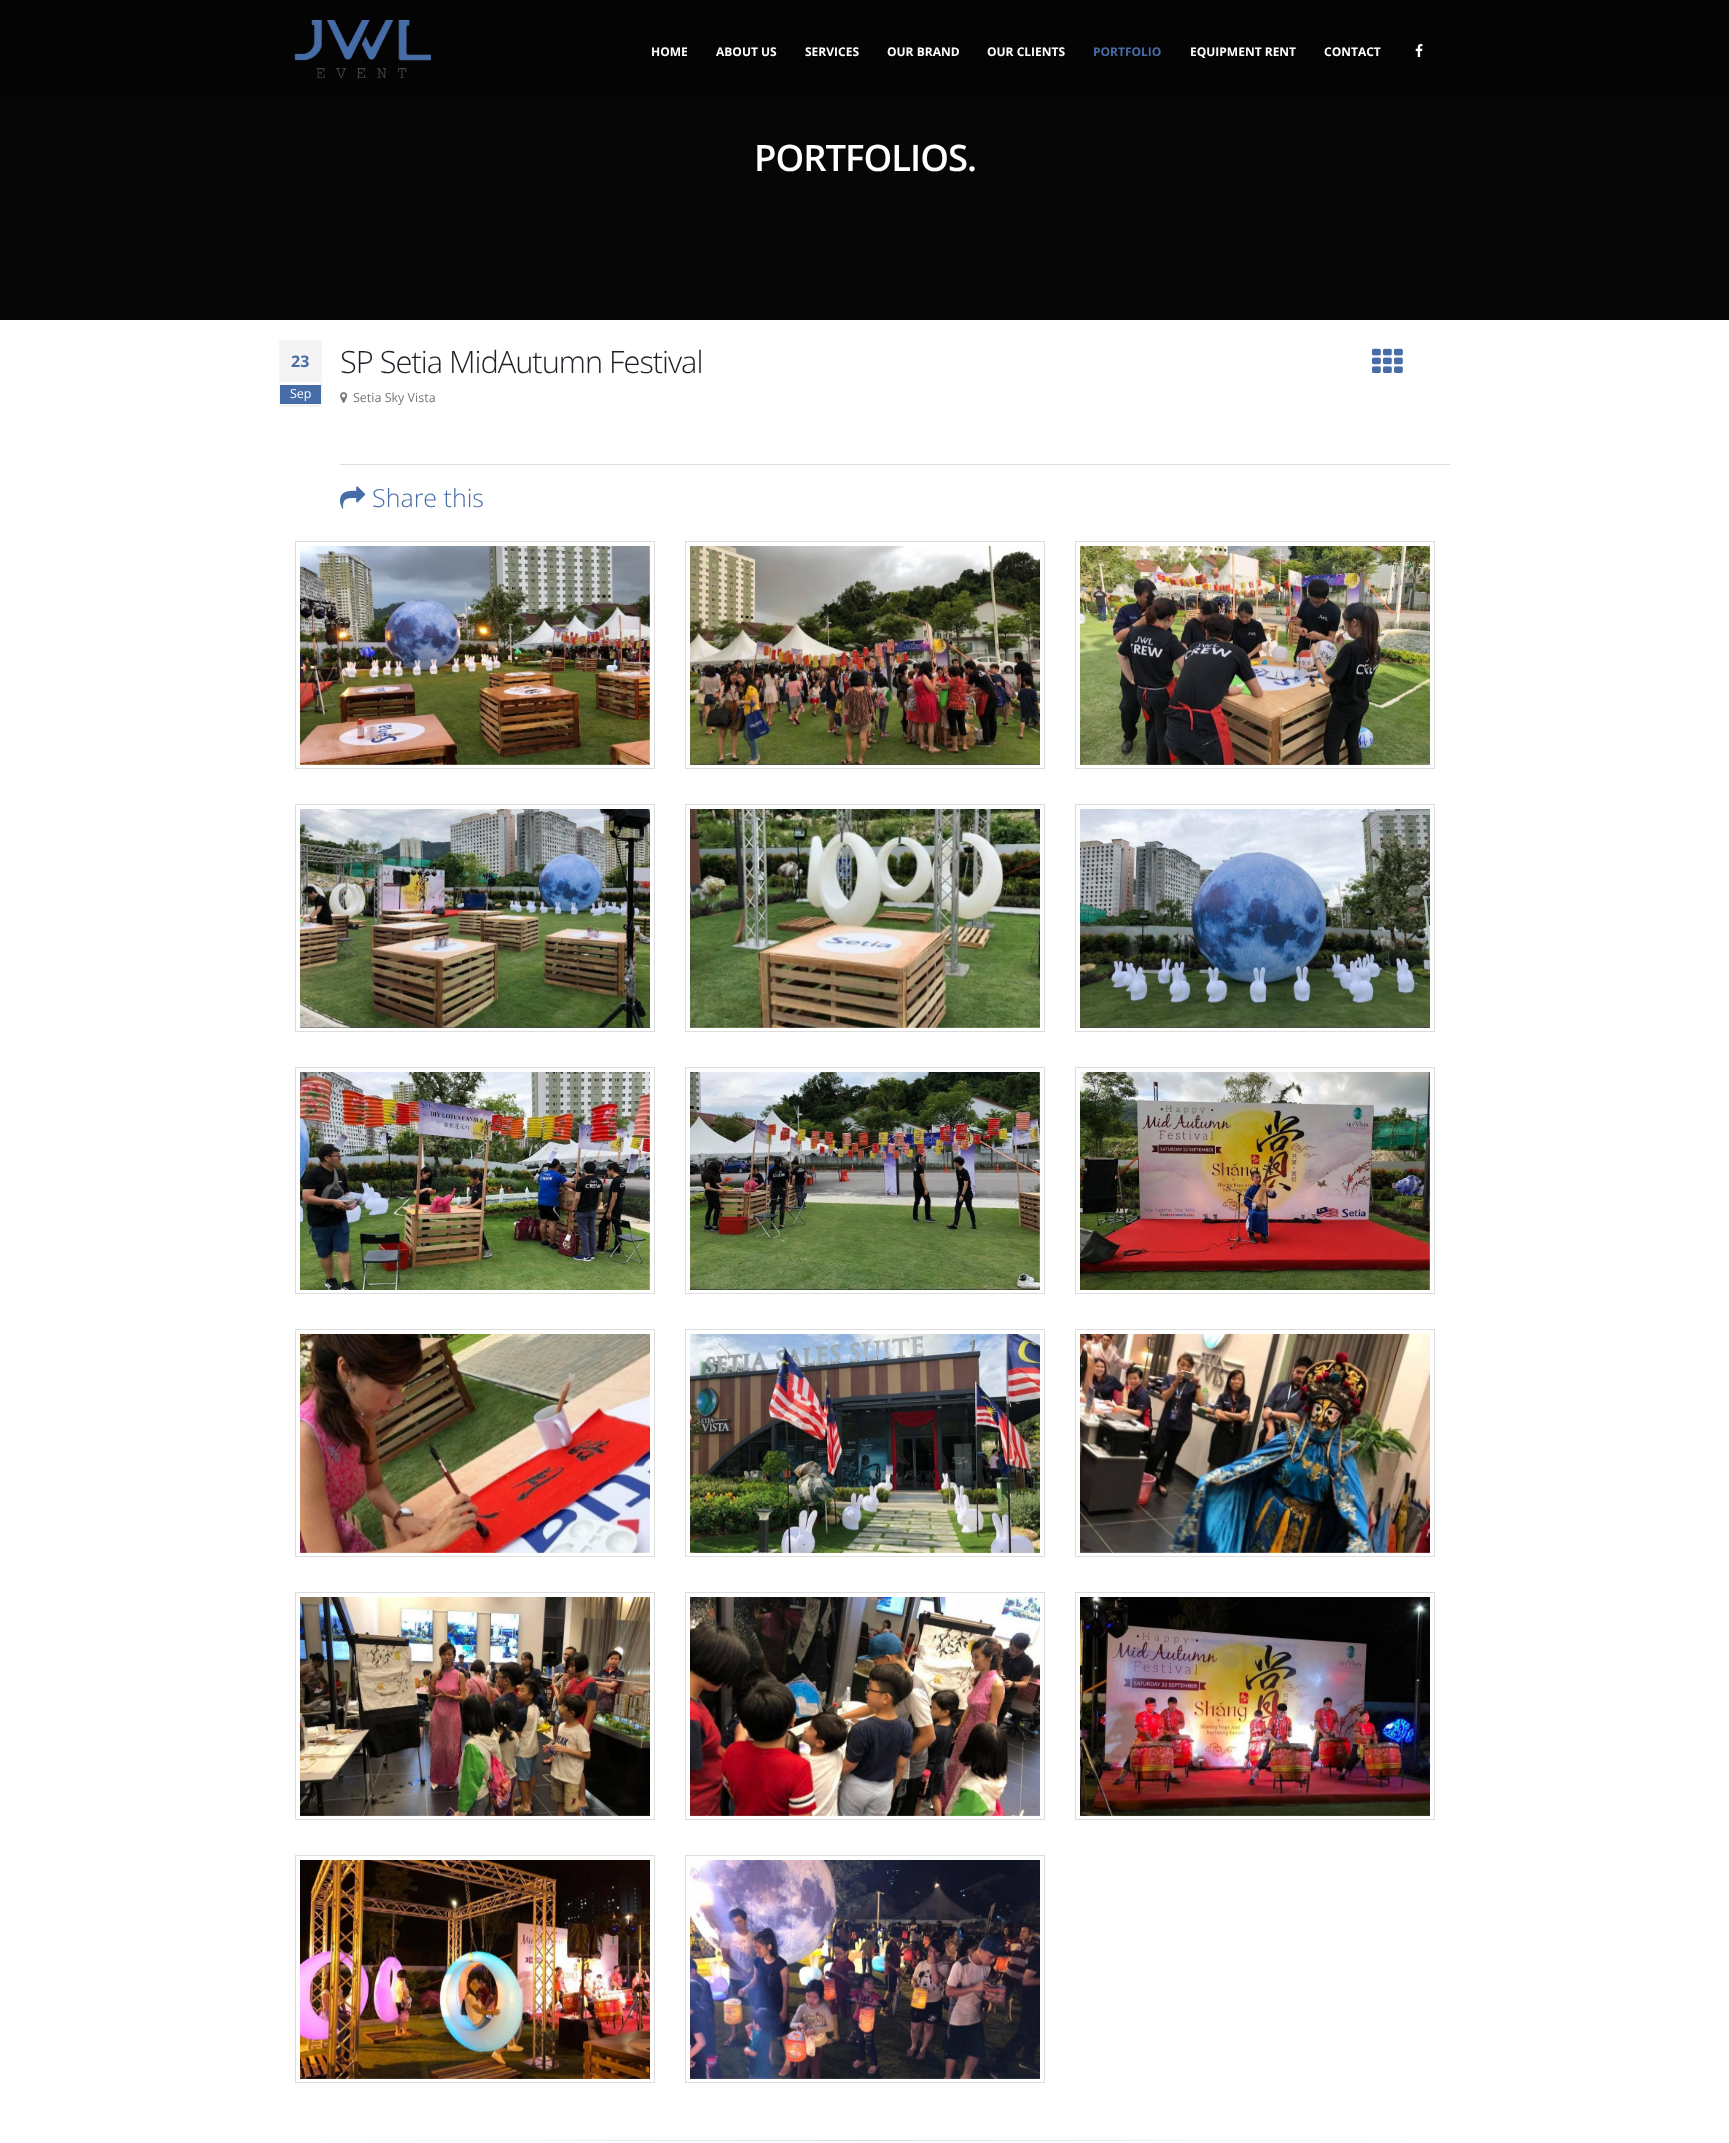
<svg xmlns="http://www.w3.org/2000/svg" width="1729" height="2143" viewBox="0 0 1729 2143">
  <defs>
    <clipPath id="clip1"><path d="M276 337H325V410H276ZM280 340H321V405H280Z" clip-rule="evenodd"/></clipPath>
    <filter id="blur1" x="-50%" y="-200%" width="200%" height="500%"><feGaussianBlur stdDeviation="1"/></filter>
    <linearGradient id="g1" gradientUnits="userSpaceOnUse" x1="280" y1="2141" x2="1450" y2="2141"><stop offset="0" stop-color="#ffffff"/><stop offset="0.5" stop-color="#dbdbdb"/><stop offset="1" stop-color="#ffffff"/></linearGradient>
  </defs>
  <rect width="100%" height="100%" fill="#ffffff"/>
  <rect x="0" y="0" width="1729" height="98" fill="#040404"/>
  <image x="294" y="20" width="137" height="58" href="img1.png"/>
  <text x="651" y="56" font-family="Open Sans" font-size="12" font-weight="bold" fill="#ffffff">HOME</text>
  <text x="716" y="56" font-family="Open Sans" font-size="12" font-weight="bold" fill="#ffffff">ABOUT US</text>
  <text x="805" y="56" font-family="Open Sans" font-size="12" font-weight="bold" fill="#ffffff">SERVICES</text>
  <text x="887" y="56" font-family="Open Sans" font-size="12" font-weight="bold" fill="#ffffff">OUR BRAND</text>
  <text x="987" y="56" font-family="Open Sans" font-size="12" font-weight="bold" fill="#ffffff">OUR CLIENTS</text>
  <text x="1093" y="56" font-family="Open Sans" font-size="12" font-weight="bold" fill="#466da8">PORTFOLIO</text>
  <text x="1190" y="56" font-family="Open Sans" font-size="12" font-weight="bold" fill="#ffffff">EQUIPMENT RENT</text>
  <text x="1324" y="56" font-family="Open Sans" font-size="12" font-weight="bold" fill="#ffffff">CONTACT</text>
  <image x="1415" y="44" width="8" height="13" href="img2.png"/>
  <rect x="0" y="98" width="1729" height="222" fill="#060606"/>
  <text x="754" y="171" font-family="Open Sans" font-size="36.5" font-weight="600" letter-spacing="-1" fill="#ffffff">PORTFOLIOS.</text>
  <g clip-path="url(#clip1)">
    <rect x="280" y="341" width="41" height="65" fill="#000000" fill-opacity="0.1" filter="url(#blur1)"/>
  </g>
  <rect x="280" y="340" width="41" height="42" fill="#f4f4f4"/>
  <text x="291" y="367" font-family="Open Sans" font-size="16" font-weight="bold" fill="#466da8">23</text>
  <rect x="280" y="385" width="41" height="18" fill="#466da8"/>
  <text x="290" y="398" font-family="Open Sans" font-size="12.5" fill="#ffffff">Sep</text>
  <rect x="280" y="403" width="41" height="1" fill="#41659c"/>
  <text x="340" y="373" font-family="Open Sans" font-size="30.75" font-weight="300" letter-spacing="-1" fill="#1d2127">SP Setia MidAutumn Festival</text>
  <image x="1372" y="348" width="31" height="25" href="img3.png"/>
  <image x="340" y="392" width="8" height="11" href="img4.png"/>
  <text x="353" y="402" font-family="Open Sans" font-size="12.5" fill="#777777">Setia Sky Vista</text>
  <rect x="340" y="464" width="1110" height="1" fill="#dddddd"/>
  <image x="340" y="486" width="26" height="23" href="img5.png"/>
  <text x="372" y="507" font-family="Open Sans" font-size="25" font-weight="300" fill="#466da8">Share this</text>
  <rect x="295.5" y="541.5" width="359" height="227" fill="none" stroke="#dddddd"/>
  <image x="300" y="546" width="350" height="219" href="img6.png"/>
  <rect x="685.5" y="541.5" width="359" height="227" fill="none" stroke="#dddddd"/>
  <image x="690" y="546" width="350" height="219" href="img7.png"/>
  <rect x="1075.5" y="541.5" width="359" height="227" fill="none" stroke="#dddddd"/>
  <image x="1080" y="546" width="350" height="219" href="img8.png"/>
  <rect x="295.5" y="804.5" width="359" height="227" fill="none" stroke="#dddddd"/>
  <image x="300" y="809" width="350" height="219" href="img9.png"/>
  <rect x="685.5" y="804.5" width="359" height="227" fill="none" stroke="#dddddd"/>
  <image x="690" y="809" width="350" height="219" href="img10.png"/>
  <rect x="1075.5" y="804.5" width="359" height="227" fill="none" stroke="#dddddd"/>
  <image x="1080" y="809" width="350" height="219" href="img11.png"/>
  <rect x="295.5" y="1067.5" width="359" height="226" fill="none" stroke="#dddddd"/>
  <image x="300" y="1072" width="350" height="218" href="img12.png"/>
  <rect x="685.5" y="1067.5" width="359" height="226" fill="none" stroke="#dddddd"/>
  <image x="690" y="1072" width="350" height="218" href="img13.png"/>
  <rect x="1075.5" y="1067.5" width="359" height="226" fill="none" stroke="#dddddd"/>
  <image x="1080" y="1072" width="350" height="218" href="img14.png"/>
  <rect x="295.5" y="1329.5" width="359" height="227" fill="none" stroke="#dddddd"/>
  <image x="300" y="1334" width="350" height="219" href="img15.png"/>
  <rect x="685.5" y="1329.5" width="359" height="227" fill="none" stroke="#dddddd"/>
  <image x="690" y="1334" width="350" height="219" href="img16.png"/>
  <rect x="1075.5" y="1329.5" width="359" height="227" fill="none" stroke="#dddddd"/>
  <image x="1080" y="1334" width="350" height="219" href="img17.png"/>
  <rect x="295.5" y="1592.5" width="359" height="227" fill="none" stroke="#dddddd"/>
  <image x="300" y="1597" width="350" height="219" href="img18.png"/>
  <rect x="685.5" y="1592.5" width="359" height="227" fill="none" stroke="#dddddd"/>
  <image x="690" y="1597" width="350" height="219" href="img19.png"/>
  <rect x="1075.5" y="1592.5" width="359" height="227" fill="none" stroke="#dddddd"/>
  <image x="1080" y="1597" width="350" height="219" href="img20.png"/>
  <rect x="295.5" y="1855.5" width="359" height="227" fill="none" stroke="#dddddd"/>
  <image x="300" y="1860" width="350" height="219" href="img21.png"/>
  <rect x="685.5" y="1855.5" width="359" height="227" fill="none" stroke="#dddddd"/>
  <image x="690" y="1860" width="350" height="219" href="img22.png"/>
  <rect x="321" y="2140" width="1088" height="1" fill="url(#g1)"/>
</svg>
